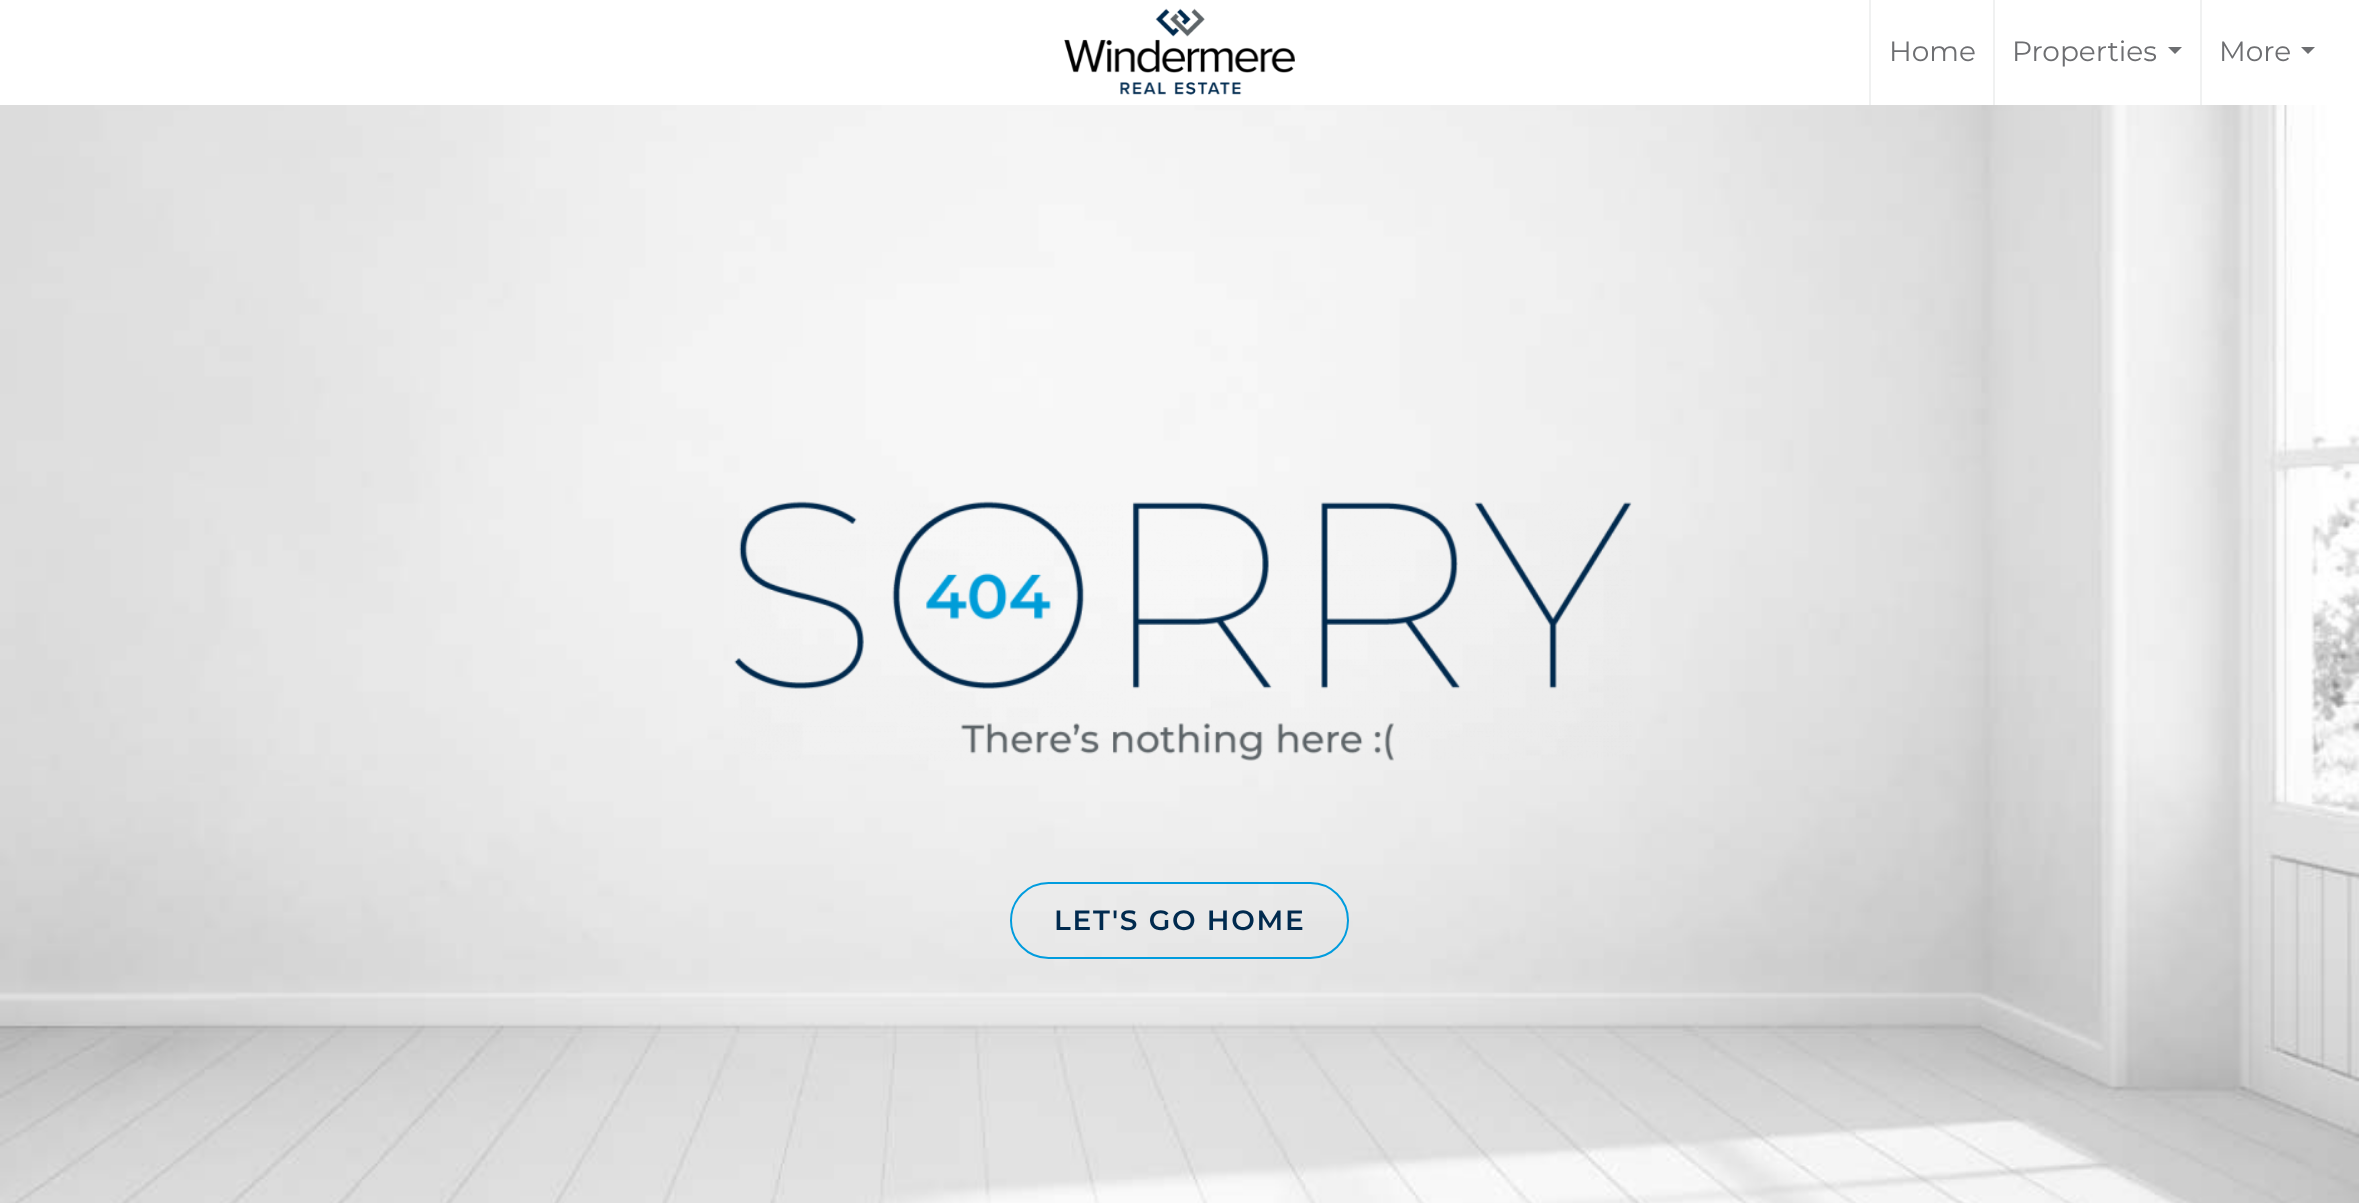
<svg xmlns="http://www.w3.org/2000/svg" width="2359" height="1203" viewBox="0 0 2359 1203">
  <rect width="100%" height="100%" fill="#ffffff"/>
  <image x="1064" y="8" width="231" height="87" href="img1.png"/>
  <rect x="1869" y="0" width="2" height="105" fill="#f0f1f1"/>
  <text x="1889" y="61" font-family="Montserrat" font-size="28" fill="#6d6e71">Home</text>
  <rect x="1993" y="0" width="2" height="105" fill="#f0f1f1"/>
  <text x="2012" y="61" font-family="Montserrat" font-size="28" fill="#6d6e71">Properties</text>
  <path d="M2168 47H2182L2175 54Z" fill="#6d6e71"/>
  <rect x="2200" y="0" width="2" height="105" fill="#f0f1f1"/>
  <text x="2219" y="61" font-family="Montserrat" font-size="28" fill="#6d6e71">More</text>
  <path d="M2301 47H2315L2308 54Z" fill="#6d6e71"/>
  <image x="0" y="105" width="2359" height="1098" href="img2.png"/>
  <image x="734" y="501" width="898" height="260" href="img3.png"/>
  <rect x="1011" y="883" width="337" height="75" rx="37.5" fill="none" stroke="#009cde" stroke-width="2"/>
  <text x="1054" y="930" font-family="Montserrat" font-size="28" font-weight="600" letter-spacing="1.75" fill="#002a4e">LET'S GO HOME</text>
</svg>
